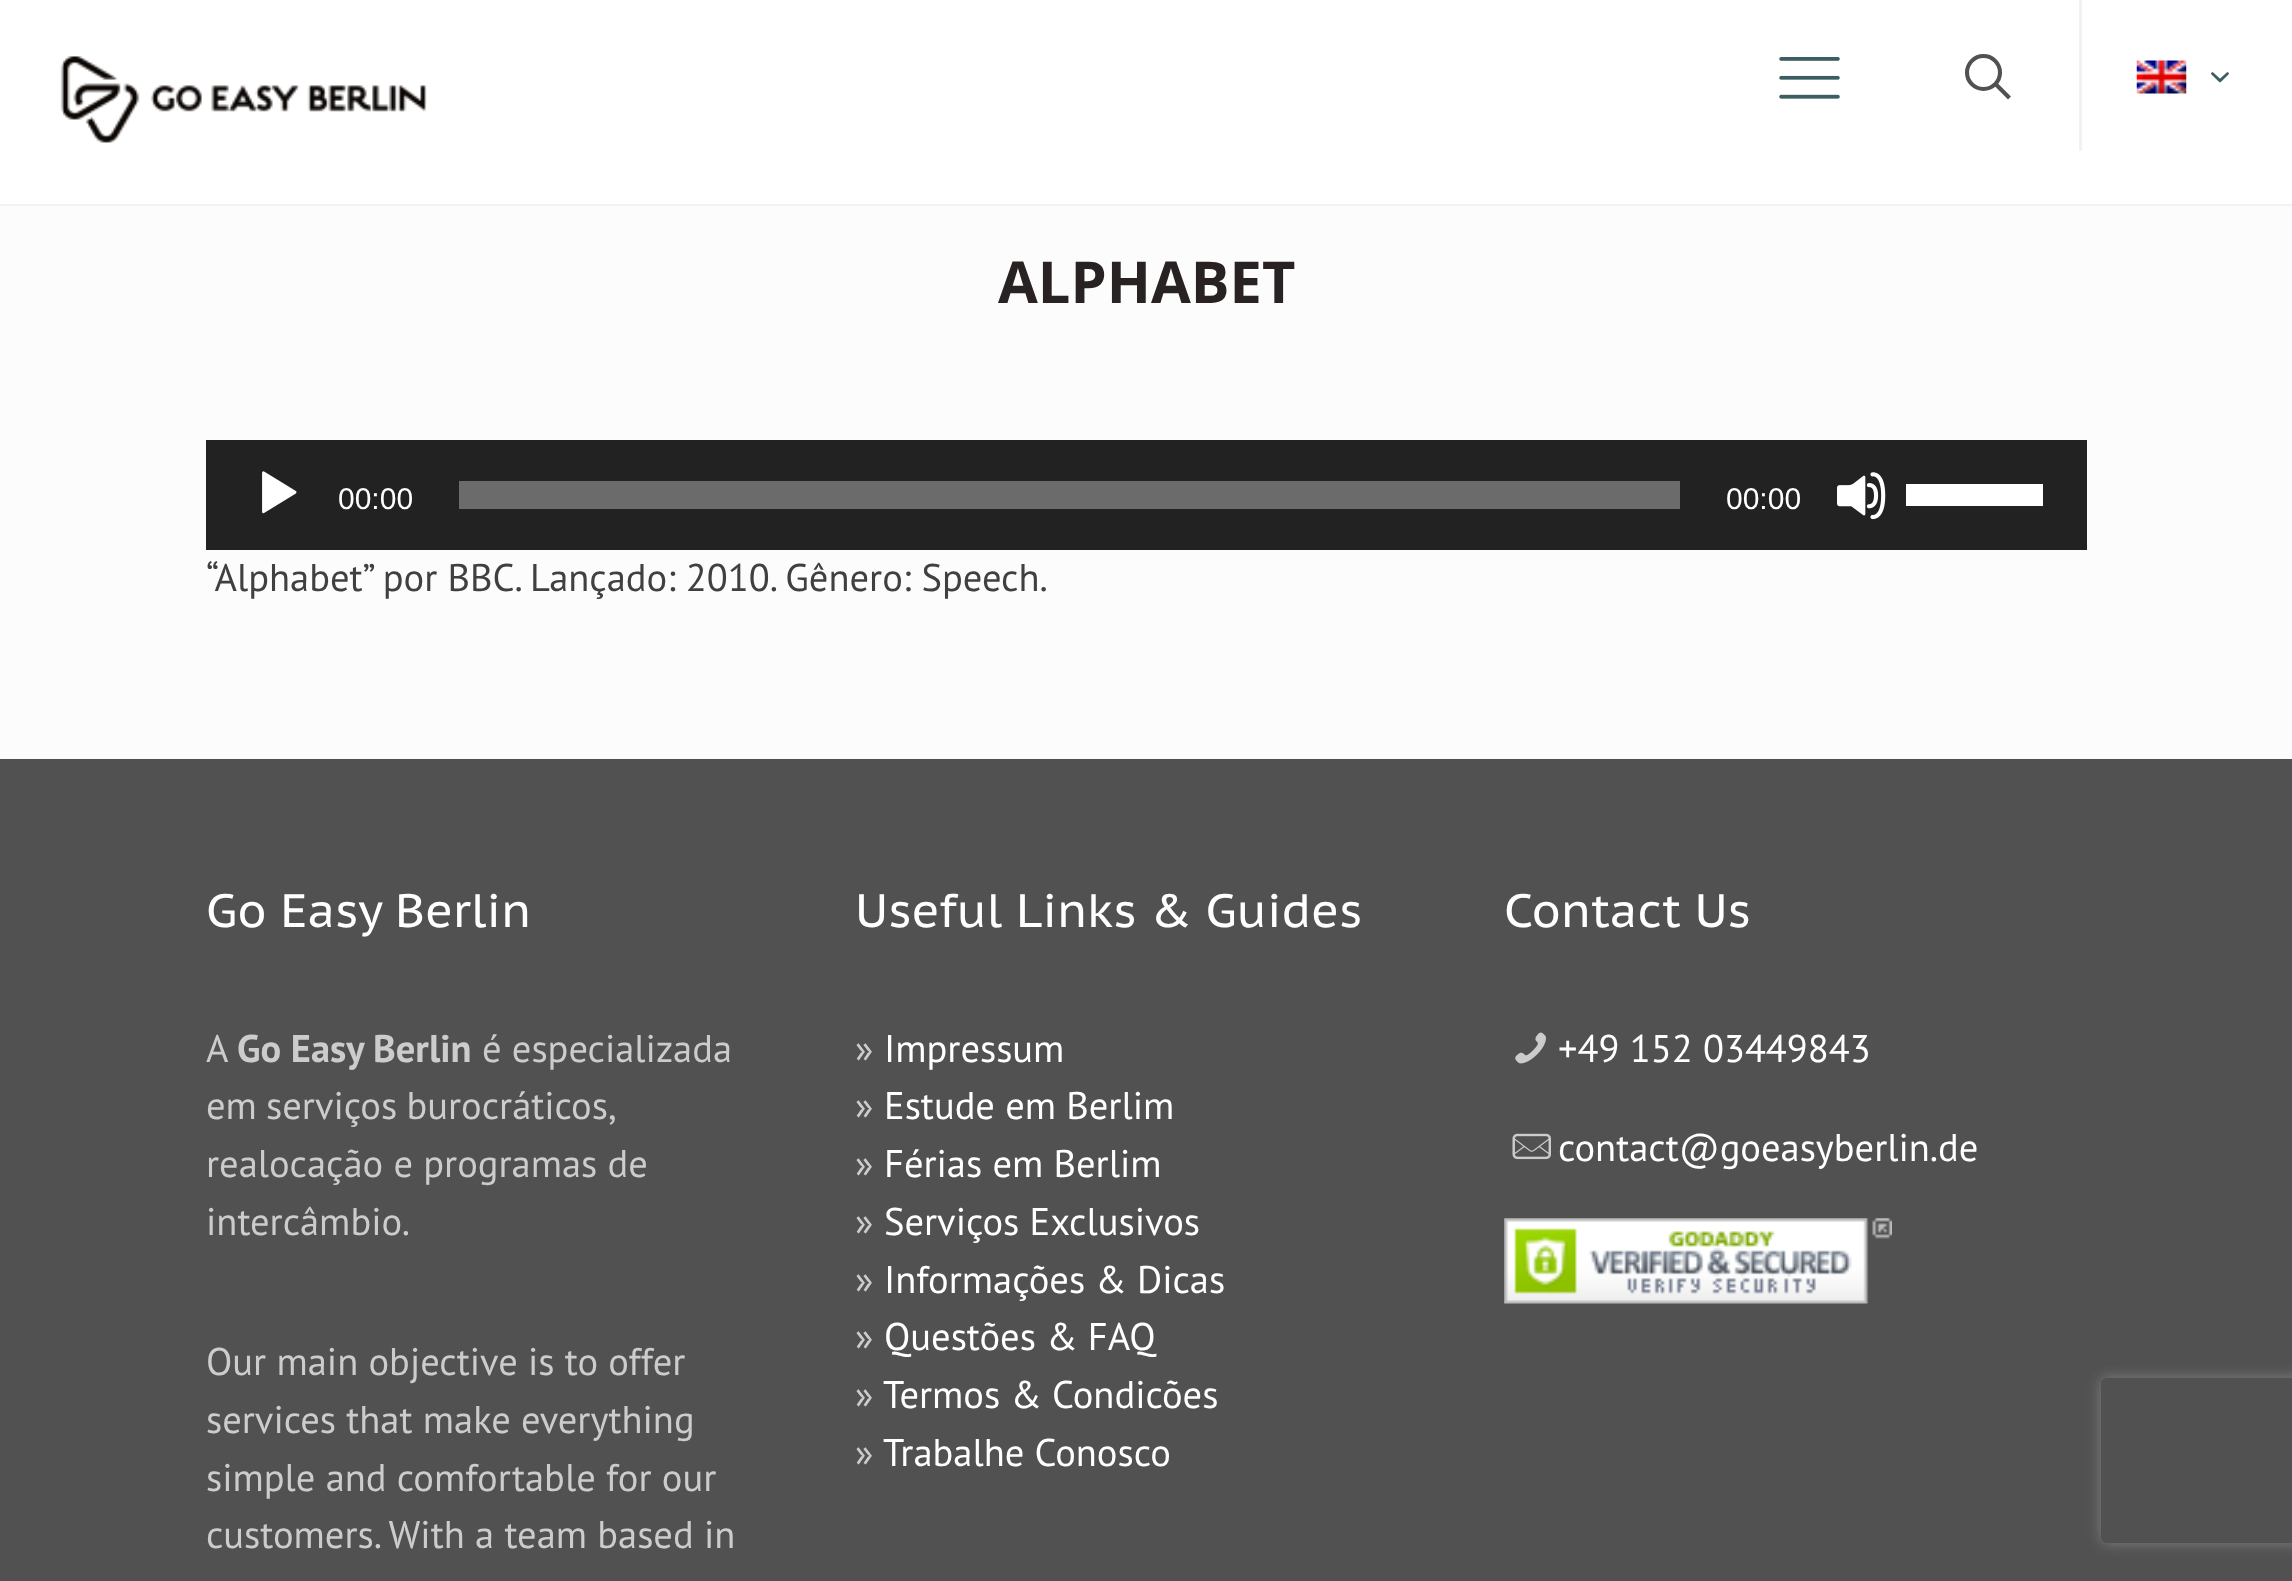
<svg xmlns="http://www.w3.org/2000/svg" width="2292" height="1581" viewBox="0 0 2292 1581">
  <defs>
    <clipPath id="clip1"><path d="M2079 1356H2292V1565H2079ZM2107 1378H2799C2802.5 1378 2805 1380.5 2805 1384V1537C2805 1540.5 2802.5 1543 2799 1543H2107C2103.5 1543 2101 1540.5 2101 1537V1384C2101 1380.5 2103.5 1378 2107 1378Z" clip-rule="evenodd"/></clipPath>
    <filter id="blur1" x="-50%" y="-200%" width="200%" height="500%"><feGaussianBlur stdDeviation="7"/></filter>
  </defs>
  <rect width="100%" height="100%" fill="#fcfcfc"/>
  <rect x="0" y="0" width="2292" height="204" fill="#ffffff"/>
  <rect x="0" y="204" width="2292" height="2" fill="#f2f2f2"/>
  <image x="60" y="56" width="367" height="87" href="img1.png"/>
  <image x="1779" y="57" width="61" height="42" href="img2.png"/>
  <circle cx="1983.5" cy="72.5" r="16.5" fill="none" stroke="#515151" stroke-width="4.1"/>
  <path d="M1995.5 84L2009.5 98" fill="none" stroke="#515151" stroke-width="4.1"/>
  <rect x="2079" y="0" width="3" height="151" fill="#f2f2f2"/>
  <image x="2136" y="60" width="51" height="34" href="img3.png"/>
  <image x="2211" y="72" width="18" height="11" href="img4.png"/>
  <text x="998" y="303" font-family="Open Sans" font-size="57.75" font-weight="bold" fill="#282322">ALPHABET</text>
  <rect x="206" y="440" width="1881" height="110" fill="#222222"/>
  <image x="262" y="471" width="35" height="43" href="img5.png"/>
  <text x="338" y="509" font-family="Liberation Sans" font-size="30" fill="#ffffff">00:00</text>
  <rect x="459" y="481" width="1221" height="28" fill="#6b6b6b"/>
  <text x="1726" y="509" font-family="Liberation Sans" font-size="30" fill="#ffffff">00:00</text>
  <image x="1837" y="472" width="49" height="48" href="img6.png"/>
  <rect x="1906" y="484" width="137" height="22" fill="#ffffff"/>
  <text x="206" y="591" font-family="PT Sans" font-size="38.5" fill="#404040">“Alphabet” por BBC. Lançado: 2010. Gênero: Speech.</text>
  <rect x="0" y="759" width="2292" height="822" fill="#515151"/>
  <text x="206" y="927" font-family="PT Sans Caption" font-size="46.75" fill="#ffffff">Go Easy Berlin</text>
  <text x="206" y="1062" font-family="PT Sans" font-size="38.5" fill="#cccccc">A</text>
  <text x="237" y="1062" font-family="PT Sans" font-size="38.5" font-weight="bold" fill="#cccccc">Go Easy Berlin</text>
  <text x="482" y="1062" font-family="PT Sans" font-size="38.5" fill="#cccccc">é especializada</text>
  <text x="206" y="1119" word-spacing="-1" font-family="PT Sans" font-size="38.5" fill="#cccccc">em serviços burocráticos,</text>
  <text x="206" y="1177" font-family="PT Sans" font-size="38.5" fill="#cccccc">realocação e programas de</text>
  <text x="206" y="1235" font-family="PT Sans" font-size="38.5" fill="#cccccc">intercâmbio.</text>
  <text x="206" y="1375" font-family="PT Sans" font-size="38.5" fill="#cccccc">Our main objective is to offer</text>
  <text x="206" y="1433" font-family="PT Sans" font-size="38.5" fill="#cccccc">services that make everything</text>
  <text x="206" y="1491" font-family="PT Sans" font-size="38.5" fill="#cccccc">simple and comfortable for our</text>
  <text x="206" y="1548" font-family="PT Sans" font-size="38.5" fill="#cccccc">customers. With a team based in</text>
  <text x="855" y="927" font-family="PT Sans Caption" font-size="46.75" fill="#ffffff">Useful Links &amp; Guides</text>
  <text x="855" y="1062" font-family="PT Sans" font-size="38.5" fill="#cccccc">»</text>
  <text x="884" y="1062" font-family="PT Sans" font-size="38.5" fill="#ffffff">Impressum</text>
  <text x="855" y="1119" font-family="PT Sans" font-size="38.5" fill="#cccccc">»</text>
  <text x="884" y="1119" font-family="PT Sans" font-size="38.5" fill="#ffffff">Estude em Berlim</text>
  <text x="855" y="1177" font-family="PT Sans" font-size="38.5" fill="#cccccc">»</text>
  <text x="884" y="1177" font-family="PT Sans" font-size="38.5" fill="#ffffff">Férias em Berlim</text>
  <text x="855" y="1235" font-family="PT Sans" font-size="38.5" fill="#cccccc">»</text>
  <text x="884" y="1235" font-family="PT Sans" font-size="38.5" fill="#ffffff">Serviços Exclusivos</text>
  <text x="855" y="1293" font-family="PT Sans" font-size="38.5" fill="#cccccc">»</text>
  <text x="884" y="1293" font-family="PT Sans" font-size="38.5" fill="#ffffff">Informações &amp; Dicas</text>
  <text x="855" y="1350" font-family="PT Sans" font-size="38.5" fill="#cccccc">»</text>
  <text x="884" y="1350" font-family="PT Sans" font-size="38.5" fill="#ffffff">Questões &amp; FAQ</text>
  <text x="855" y="1408" font-family="PT Sans" font-size="38.5" fill="#cccccc">»</text>
  <text x="883" y="1408" font-family="PT Sans" font-size="38.5" fill="#ffffff">Termos &amp; Condicões</text>
  <text x="855" y="1466" font-family="PT Sans" font-size="38.5" fill="#cccccc">»</text>
  <text x="883" y="1466" font-family="PT Sans" font-size="38.5" fill="#ffffff">Trabalhe Conosco</text>
  <text x="1504" y="927" font-family="PT Sans Caption" font-size="46.75" fill="#ffffff">Contact Us</text>
  <image x="1515" y="1032" width="31" height="32" href="img7.png"/>
  <text x="1558" y="1062" font-family="PT Sans" font-size="38.5" fill="#ffffff">+49 152 03449843</text>
  <image x="1512" y="1133" width="39" height="27" href="img8.png"/>
  <text x="1558" y="1161" font-family="PT Sans" font-size="38.5" fill="#ffffff">contact@goeasyberlin.de</text>
  <image x="1504" y="1218" width="388" height="86" href="img9.png"/>
  <g clip-path="url(#clip1)">
    <rect x="2101" y="1378" width="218" height="165" rx="6" fill="#808080" filter="url(#blur1)"/>
  </g>
</svg>
